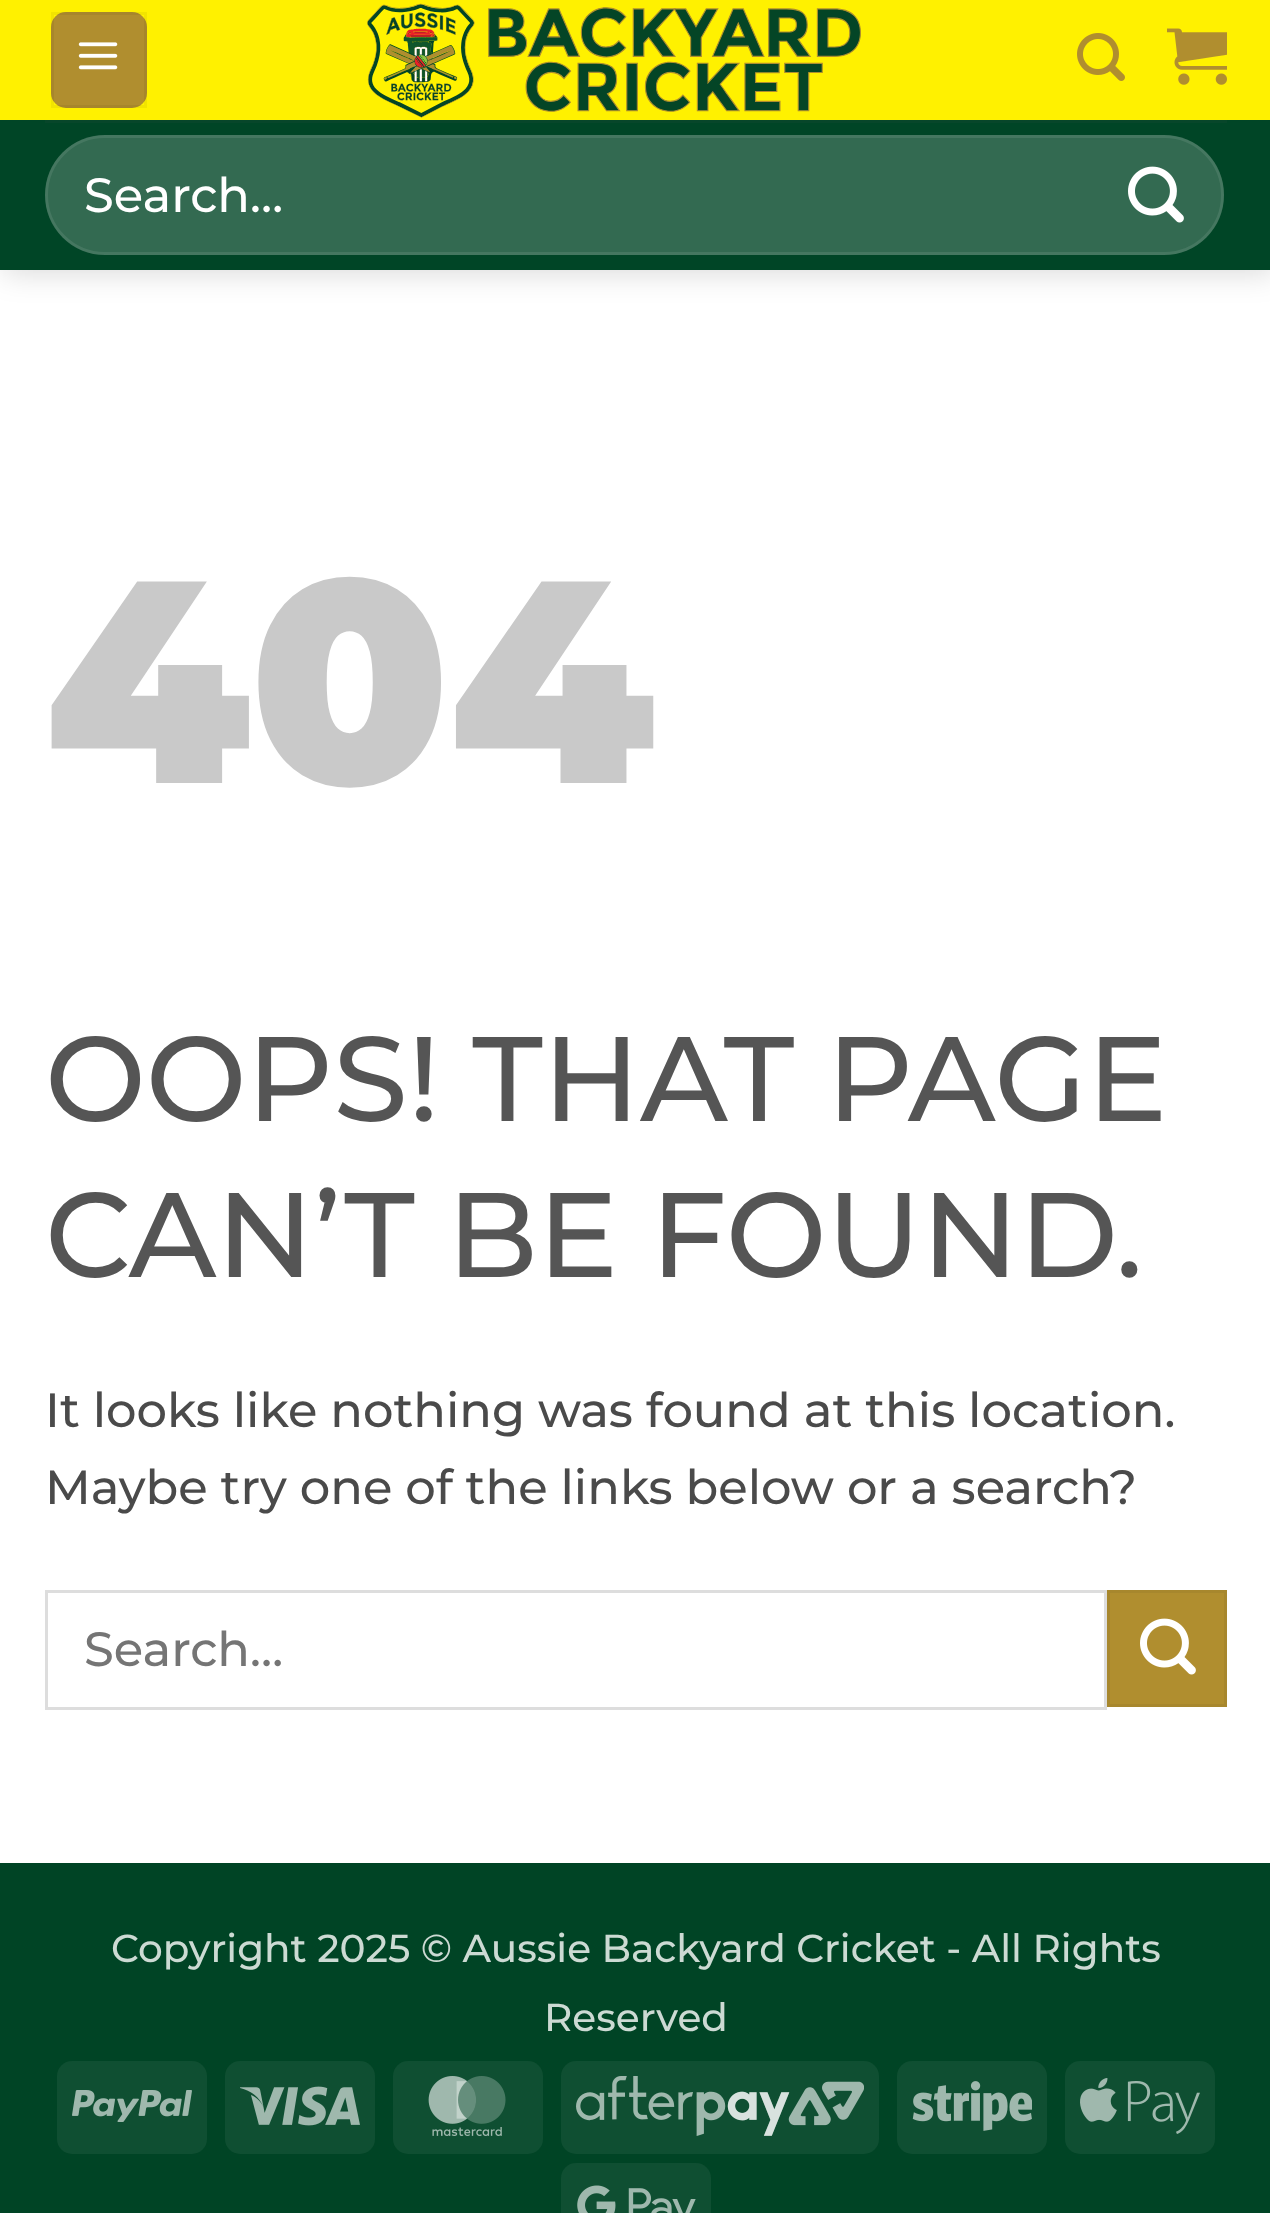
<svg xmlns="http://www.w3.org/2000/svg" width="1270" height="2213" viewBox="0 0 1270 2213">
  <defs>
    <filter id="blur1" x="-50%" y="-200%" width="200%" height="500%"><feGaussianBlur stdDeviation="15"/></filter>
  </defs>
  <rect width="100%" height="100%" fill="#ffffff"/>
  <rect x="3" y="3" width="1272" height="270" fill="#000000" fill-opacity="0.15" filter="url(#blur1)"/>
  <rect x="0" y="0" width="1270" height="120" fill="#fff100"/>
  <rect x="51" y="12" width="96" height="96" rx="15" fill="#b08e2f"/>
  <rect x="52.5" y="13.5" width="93" height="93" fill="none" stroke="#000000" stroke-opacity="0.05" stroke-width="3"/>
  <image x="78" y="42" width="40" height="28" href="img1.png"/>
  <image x="367" y="3" width="494" height="115" href="img2.png"/>
  <image x="1077" y="33" width="48" height="48" href="img3.png"/>
  <image x="1167" y="28" width="60" height="57" href="img4.png"/>
  <rect x="0" y="120" width="1270" height="150" fill="#004526"/>
  <rect x="45" y="120" width="1182" height="3" fill="#07462a"/>
  <rect x="45" y="135" width="1179" height="120" rx="60" fill="#336a51"/>
  <rect x="46.5" y="136.5" width="1176" height="117" rx="58.5" fill="none" stroke="#ffffff" stroke-opacity="0.09" stroke-width="3"/>
  <text x="84" y="212" font-family="Montserrat" font-size="48" font-weight="500" fill="#ffffff">Search…</text>
  <image x="1128" y="166" width="56" height="57" href="img5.png"/>
  <text x="45" y="783" font-family="Montserrat" font-size="288" font-weight="900" fill="#c9c9c9">404</text>
  <text x="45" y="1121" font-family="Montserrat" font-size="120" font-weight="500" fill="#555555">OOPS! THAT PAGE</text>
  <text x="45" y="1277" font-family="Montserrat" font-size="120" font-weight="500" fill="#555555">CAN’T BE FOUND.</text>
  <text x="45" y="1427" font-family="Montserrat" font-size="48" font-weight="500" fill="#4a4a4a">It looks like nothing was found at this location.</text>
  <text x="45" y="1504" font-family="Montserrat" font-size="48" font-weight="500" fill="#4a4a4a">Maybe try one of the links below or a search?</text>
  <rect x="46.5" y="1591.5" width="1059" height="117" fill="none" stroke="#dddddd" stroke-width="3"/>
  <text x="84" y="1666" font-family="Montserrat" font-size="48" font-weight="500" fill="#757575">Search…</text>
  <rect x="1108.5" y="1591.5" width="117" height="114" fill="#b08e2f" stroke="#a7872d" stroke-width="3"/>
  <image x="1140" y="1618" width="56" height="57" href="img6.png"/>
  <rect x="0" y="1863" width="1270" height="350" fill="#004425"/>
  <text x="111" y="1962" font-family="Montserrat" font-size="39" font-weight="500" fill="#ccdad3">Copyright 2025 © Aussie Backyard Cricket - All Rights</text>
  <text x="544" y="2031" font-family="Montserrat" font-size="39" font-weight="500" fill="#ccdad3">Reserved</text>
  <rect x="57" y="2061" width="150" height="93" rx="15" fill="#0f4f32"/>
  <image x="72" y="2090" width="120" height="32" href="img7.png"/>
  <rect x="225" y="2061" width="150" height="93" rx="15" fill="#0f4f32"/>
  <image x="240" y="2086" width="120" height="40" href="img8.png"/>
  <rect x="393" y="2061" width="150" height="93" rx="15" fill="#0f4f32"/>
  <image x="428" y="2076" width="78" height="60" href="img9.png"/>
  <rect x="561" y="2061" width="318" height="93" rx="15" fill="#0f4f32"/>
  <image x="576" y="2076" width="288" height="60" href="img10.png"/>
  <rect x="897" y="2061" width="150" height="93" rx="15" fill="#0f4f32"/>
  <image x="912" y="2081" width="120" height="50" href="img11.png"/>
  <rect x="1065" y="2061" width="150" height="93" rx="15" fill="#0f4f32"/>
  <image x="1080" y="2078" width="120" height="56" href="img12.png"/>
  <rect x="561" y="2163" width="150" height="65" rx="15" fill="#0f4f32"/>
  <image x="577" y="2185" width="119" height="28" href="img13.png"/>
</svg>
